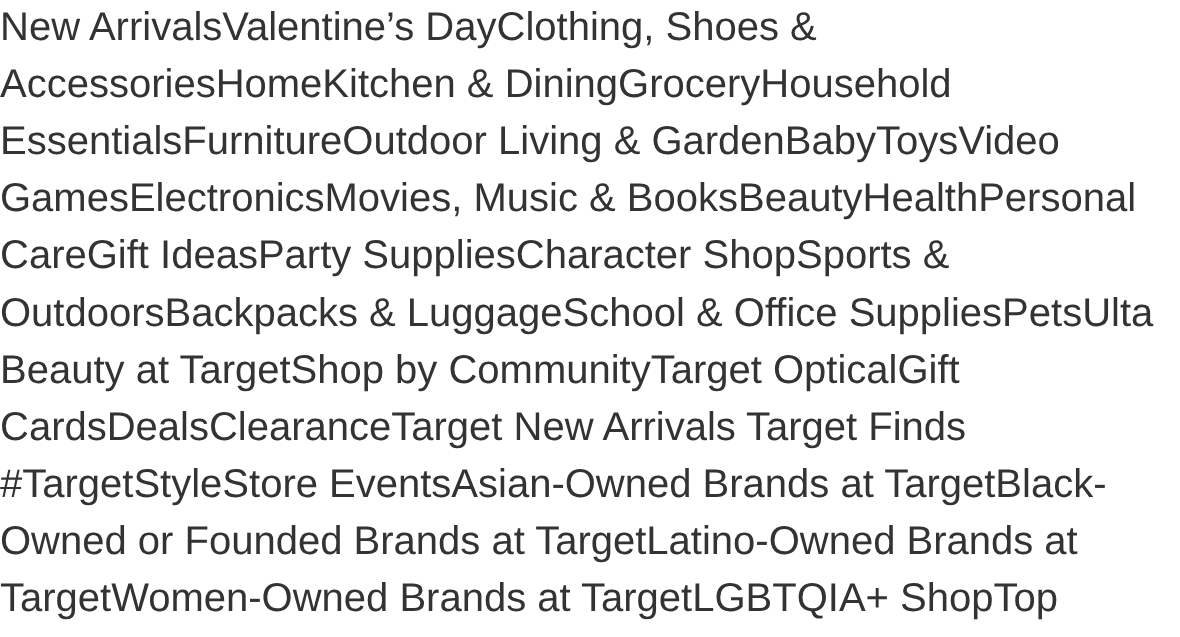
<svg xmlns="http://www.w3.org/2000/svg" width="1180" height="637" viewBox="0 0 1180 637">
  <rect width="100%" height="100%" fill="#ffffff"/>
  <text x="0" y="40" font-family="Liberation Sans" font-size="40" fill="#333333">New ArrivalsValentine’s DayClothing, Shoes &amp;</text>
  <text x="0" y="97" font-family="Liberation Sans" font-size="40" fill="#333333">AccessoriesHomeKitchen &amp; DiningGroceryHousehold</text>
  <text x="0" y="154" font-family="Liberation Sans" font-size="40" fill="#333333">EssentialsFurnitureOutdoor Living &amp; GardenBabyToysVideo</text>
  <text x="0" y="211" font-family="Liberation Sans" font-size="40" fill="#333333">GamesElectronicsMovies, Music &amp; BooksBeautyHealthPersonal</text>
  <text x="0" y="268" font-family="Liberation Sans" font-size="40" fill="#333333">CareGift IdeasParty SuppliesCharacter ShopSports &amp;</text>
  <text x="0" y="326" font-family="Liberation Sans" font-size="40" fill="#333333">OutdoorsBackpacks &amp; LuggageSchool &amp; Office SuppliesPetsUlta</text>
  <text x="0" y="383" font-family="Liberation Sans" font-size="40" fill="#333333">Beauty at TargetShop by CommunityTarget OpticalGift</text>
  <text x="0" y="440" font-family="Liberation Sans" font-size="40" fill="#333333">CardsDealsClearanceTarget New Arrivals</text>
  <text x="746" y="440" font-family="Liberation Sans" font-size="40" fill="#333333">Target Finds</text>
  <text x="0" y="497" font-family="Liberation Sans" font-size="40" fill="#333333">#TargetStyleStore EventsAsian-Owned Brands at TargetBlack-</text>
  <text x="0" y="554" font-family="Liberation Sans" font-size="40" fill="#333333">Owned or Founded Brands at TargetLatino-Owned Brands at</text>
  <text x="0" y="611" font-family="Liberation Sans" font-size="40" fill="#333333">TargetWomen-Owned Brands at TargetLGBTQIA+ ShopTop</text>
</svg>
